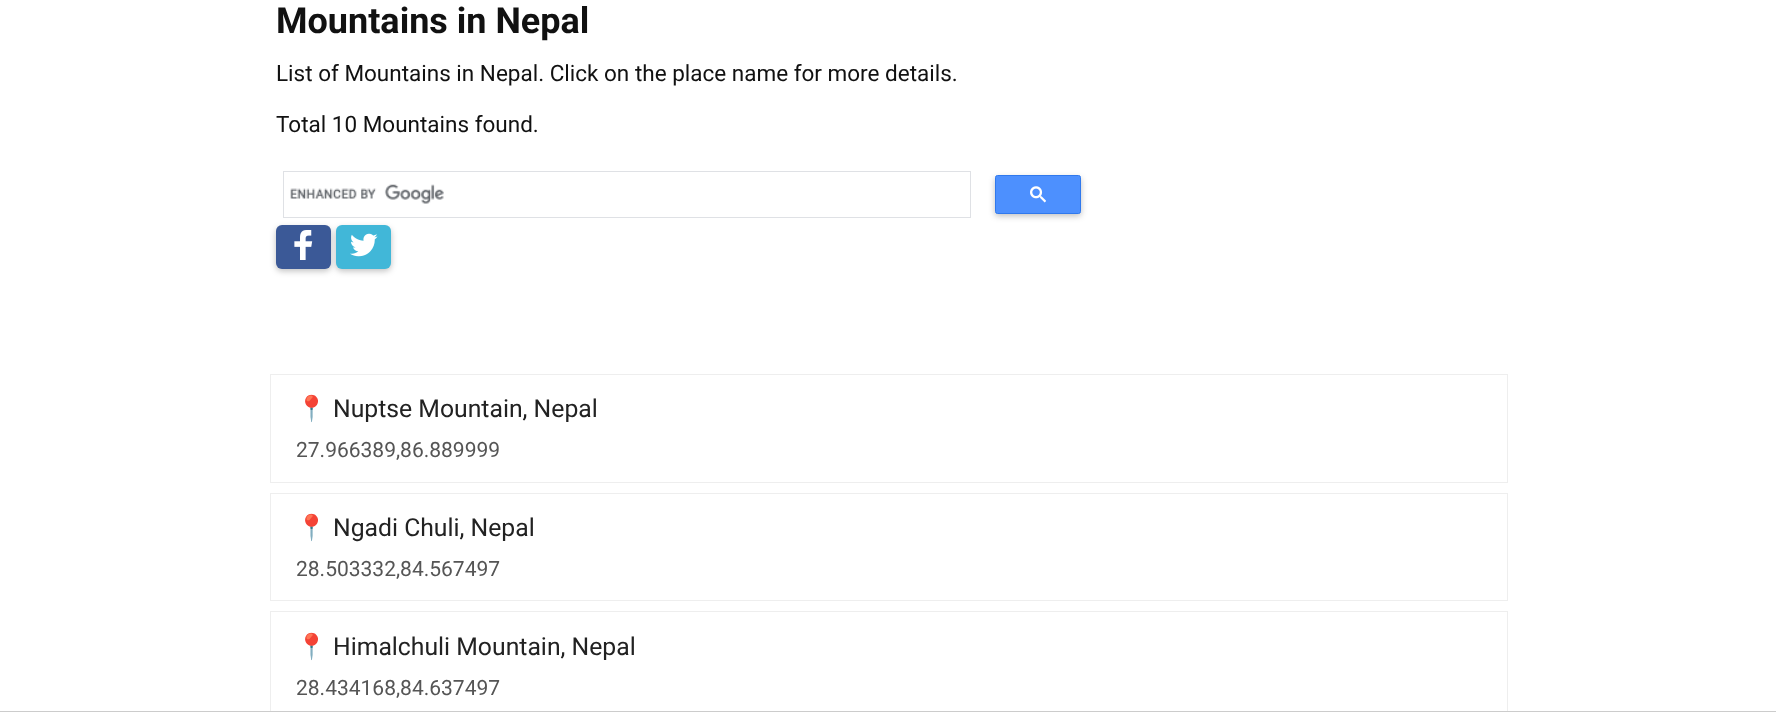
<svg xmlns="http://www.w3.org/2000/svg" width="1776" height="712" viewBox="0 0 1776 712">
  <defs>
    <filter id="blur1" x="-50%" y="-200%" width="200%" height="500%"><feGaussianBlur stdDeviation="3"/></filter>
  </defs>
  <rect width="100%" height="100%" fill="#ffffff"/>
  <text x="276" y="33" font-family="Roboto" font-size="36" font-weight="bold" fill="#111111">Mountains in Nepal</text>
  <text x="276" y="81" font-family="Roboto" font-size="22.5" fill="#111111">List of Mountains in Nepal. Click on the place name for more details.</text>
  <text x="276" y="132" font-family="Roboto" font-size="22.5" fill="#111111">Total 10 Mountains found.</text>
  <rect x="283.5" y="171.5" width="687" height="46" fill="none" stroke="#dfe1e5"/>
  <image x="290" y="184" width="154" height="20" href="img1.png"/>
  <rect x="995" y="178" width="86" height="38" rx="2.5" fill="#000000" fill-opacity="0.25" filter="url(#blur1)"/>
  <rect x="995.5" y="175.5" width="85" height="38" rx="2" fill="#4d90fe" stroke="#3079ed"/>
  <image x="1030" y="186" width="16" height="17" href="img2.png"/>
  <rect x="276" y="228" width="55" height="43" rx="6" fill="#000000" fill-opacity="0.25" filter="url(#blur1)"/>
  <rect x="276" y="225" width="55" height="44" rx="6" fill="#3b5997"/>
  <image x="294" y="230" width="19" height="30" href="img3.png"/>
  <rect x="336" y="228" width="55" height="43" rx="6" fill="#000000" fill-opacity="0.25" filter="url(#blur1)"/>
  <rect x="336" y="225" width="55" height="44" rx="6" fill="#41b7d8"/>
  <image x="350" y="233" width="28" height="24" href="img4.png"/>
  <rect x="270.5" y="374.5" width="1237" height="108" fill="none" stroke="#eeeeee"/>
  <text x="296" y="417" font-family="Noto Color Emoji" font-size="25" fill="#0d47a1">📍</text>
  <text x="333" y="417" font-family="Roboto" font-size="24.75" fill="#222222">Nuptse Mountain, Nepal</text>
  <text x="296" y="457" font-family="Roboto" font-size="21" fill="#555555">27.966389,86.889999</text>
  <rect x="270.5" y="493.5" width="1237" height="107" fill="none" stroke="#eeeeee"/>
  <text x="296" y="536" font-family="Noto Color Emoji" font-size="25" fill="#0d47a1">📍</text>
  <text x="333" y="536" font-family="Roboto" font-size="24.75" fill="#222222">Ngadi Chuli, Nepal</text>
  <text x="296" y="576" font-family="Roboto" font-size="21" fill="#555555">28.503332,84.567497</text>
  <rect x="270.5" y="611.5" width="1237" height="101" fill="none" stroke="#eeeeee"/>
  <text x="296" y="655" font-family="Noto Color Emoji" font-size="25" fill="#0d47a1">📍</text>
  <text x="333" y="655" font-family="Roboto" font-size="24.75" fill="#222222">Himalchuli Mountain, Nepal</text>
  <text x="296" y="695" font-family="Roboto" font-size="21" fill="#555555">28.434168,84.637497</text>
  <rect x="0" y="711" width="1776" height="1" fill="#cccccc"/>
</svg>
